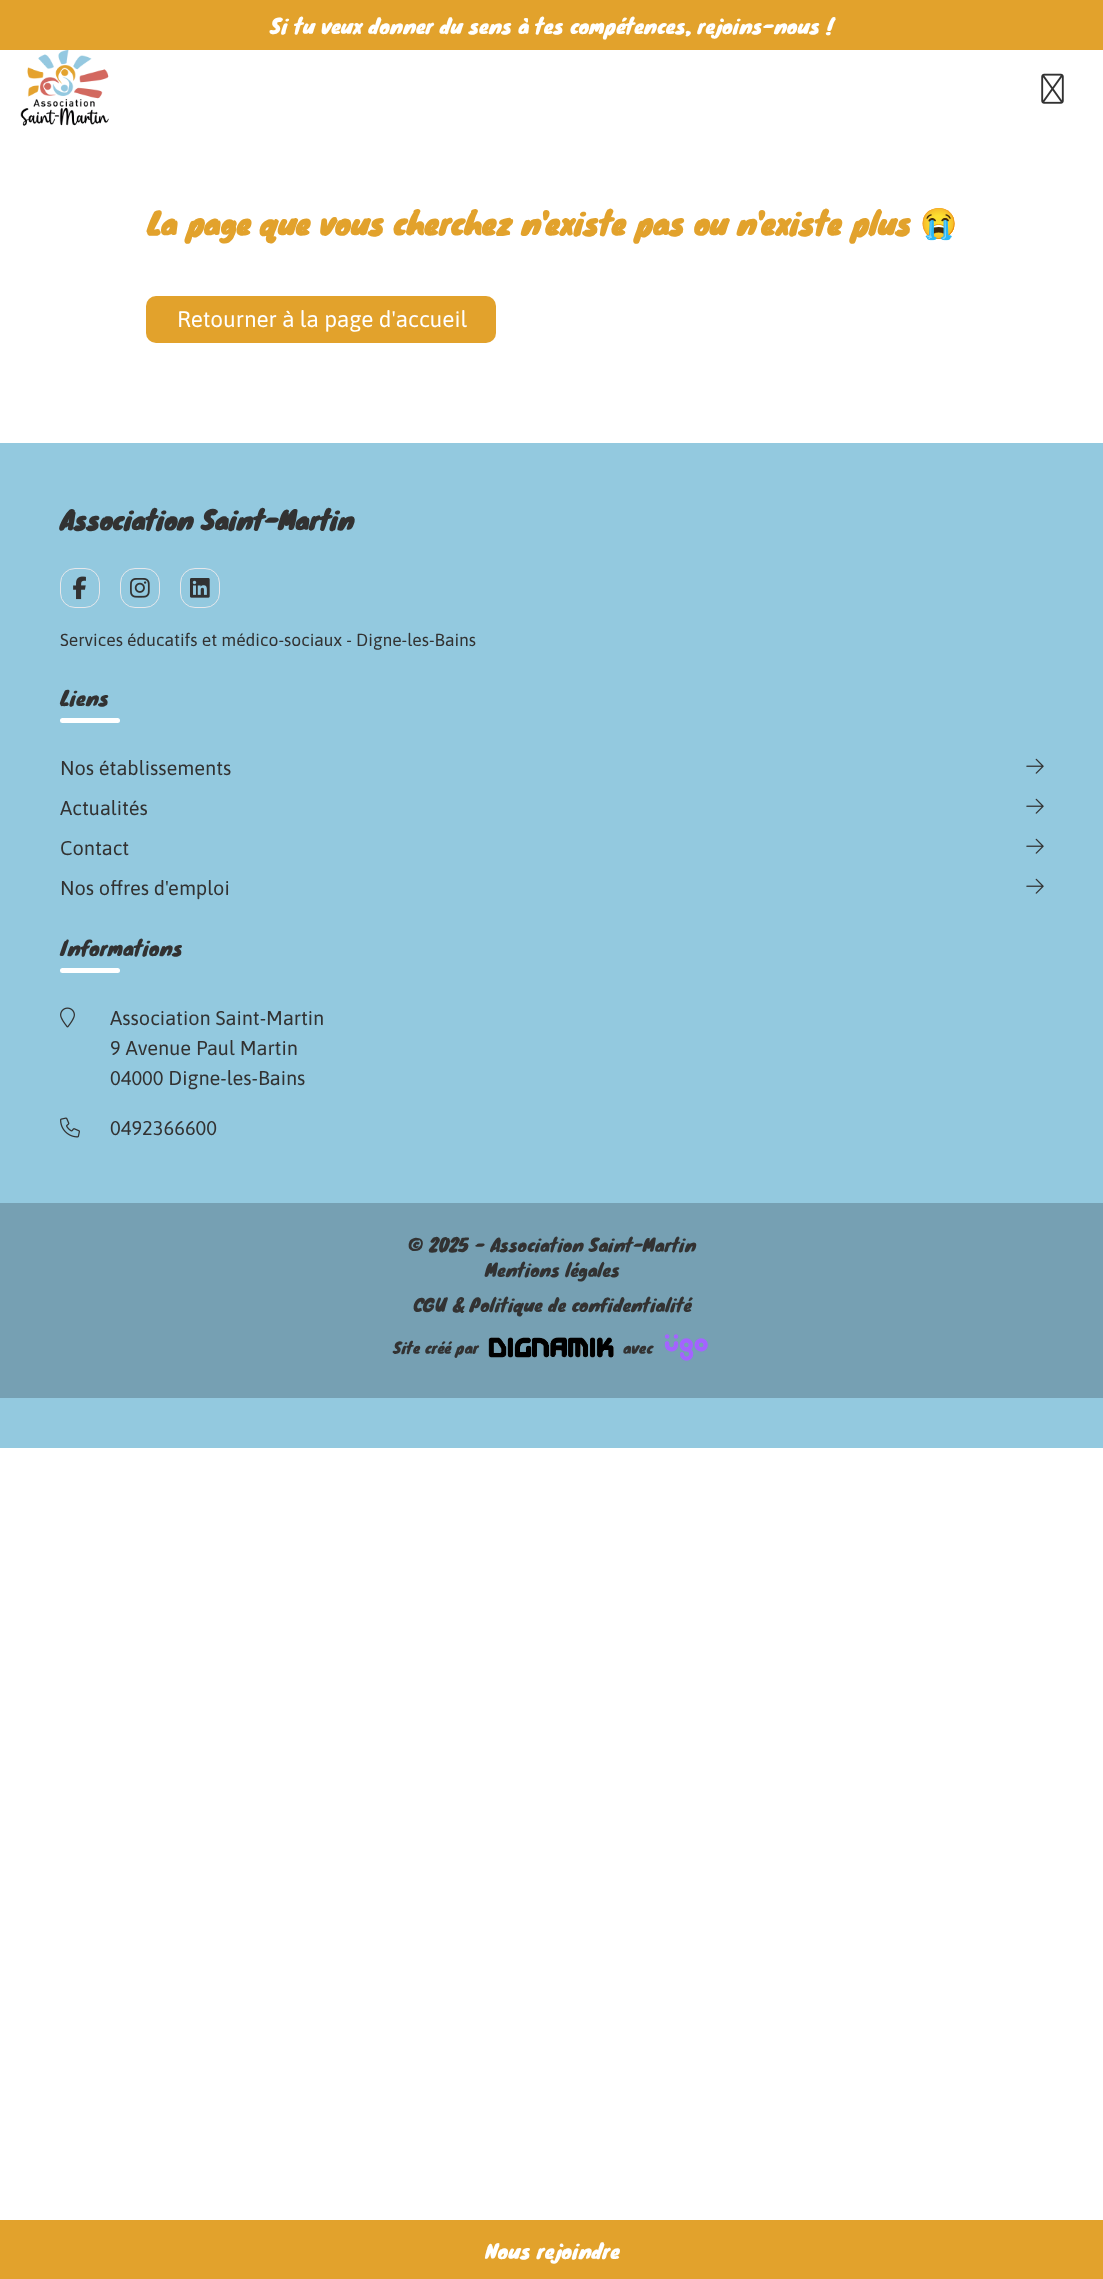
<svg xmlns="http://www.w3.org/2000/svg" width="1103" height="2279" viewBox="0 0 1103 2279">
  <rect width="100%" height="100%" fill="#ffffff"/>
  <rect x="0" y="0" width="1103" height="50" fill="#e2a22c"/>
  <text x="270" y="33" font-family="Knewave" font-size="20" fill="#ffffff">Si tu veux donner du sens à tes compétences, rejoins-nous !</text>
  <text x="147" y="234" font-family="Knewave" font-size="30" font-weight="bold" fill="#e2a22c">La page que vous cherchez n'existe pas ou n'existe plus</text>
  <text x="920" y="234" font-family="Noto Color Emoji" font-size="30" font-weight="bold" fill="#e2a22c">😭</text>
  <rect x="146" y="296" width="350" height="47" rx="10" fill="#e2a22c"/>
  <text x="177" y="327" font-family="Asap" font-size="22.5" fill="#ffffff">Retourner à la page d'accueil</text>
  <rect x="0" y="443" width="1103" height="1005" fill="#93c9df"/>
  <text x="60" y="529" font-family="Knewave" font-size="25" font-weight="bold" fill="#323232">Association Saint-Martin</text>
  <rect x="60.5" y="568.5" width="39" height="39" rx="14.5" fill="none" stroke="#e5e7eb"/>
  <image x="73" y="576" width="13" height="24" href="img1.png"/>
  <rect x="120.5" y="568.5" width="39" height="39" rx="14.5" fill="none" stroke="#e5e7eb"/>
  <image x="130" y="578" width="20" height="20" href="img2.png"/>
  <rect x="180.5" y="568.5" width="39" height="39" rx="14.5" fill="none" stroke="#e5e7eb"/>
  <image x="190" y="578" width="20" height="20" href="img3.png"/>
  <text x="60" y="646" font-family="Asap" font-size="17.5" fill="#323232">Services éducatifs et médico-sociaux - Digne-les-Bains</text>
  <text x="60" y="705" font-family="Knewave" font-size="20" fill="#323232">Liens</text>
  <rect x="60" y="718" width="60" height="5" rx="2.5" fill="#ffffff"/>
  <text x="60" y="775" font-family="Asap" font-size="20" fill="#323232">Nos établissements</text>
  <image x="1026" y="758" width="18" height="16" href="img4.png"/>
  <text x="60" y="815" font-family="Asap" font-size="20" fill="#323232">Actualités</text>
  <image x="1026" y="798" width="18" height="16" href="img4.png"/>
  <text x="60" y="855" font-family="Asap" font-size="20" fill="#323232">Contact</text>
  <image x="1026" y="838" width="18" height="16" href="img4.png"/>
  <text x="60" y="895" font-family="Asap" font-size="20" fill="#323232">Nos offres d'emploi</text>
  <image x="1026" y="878" width="18" height="16" href="img4.png"/>
  <text x="60" y="955" font-family="Knewave" font-size="20" fill="#323232">Informations</text>
  <rect x="60" y="968" width="60" height="5" rx="2.5" fill="#ffffff"/>
  <image x="60" y="1007" width="15" height="21" href="img5.png"/>
  <text x="110" y="1025" font-family="Asap" font-size="20" fill="#323232">Association Saint-Martin</text>
  <text x="110" y="1055" font-family="Asap" font-size="20" fill="#323232">9 Avenue Paul Martin</text>
  <text x="110" y="1085" font-family="Asap" font-size="20" fill="#323232">04000 Digne-les-Bains</text>
  <image x="60" y="1117" width="20" height="21" href="img6.png"/>
  <text x="110" y="1135" font-family="Asap" font-size="20" fill="#323232">0492366600</text>
  <rect x="0" y="1203" width="1103" height="195" fill="#76a0b3"/>
  <text x="408" y="1251" font-family="Knewave" font-size="17.5" fill="#323232">© 2025 - Association Saint-Martin</text>
  <text x="485" y="1276" font-family="Knewave" font-size="17.5" fill="#323232">Mentions légales</text>
  <text x="413" y="1311" font-family="Knewave" font-size="17.5" fill="#323232">CGU &amp; Politique de confidentialité</text>
  <text x="393" y="1353" font-family="Knewave" font-size="15" fill="#323232">Site créé par</text>
  <image x="488" y="1337" width="126" height="21" href="img7.png"/>
  <text x="623" y="1353" font-family="Knewave" font-size="15" fill="#323232">avec</text>
  <image x="664" y="1334" width="44" height="27" href="img8.png"/>
  <image x="20" y="50" width="89" height="76" href="img9.png"/>
  <image x="1041" y="73" width="23" height="31" href="img10.png"/>
  <rect x="0" y="2220" width="1103" height="59" fill="#e2a22c"/>
  <text x="485" y="2258" font-family="Knewave" font-size="20" fill="#ffffff">Nous rejoindre</text>
</svg>
